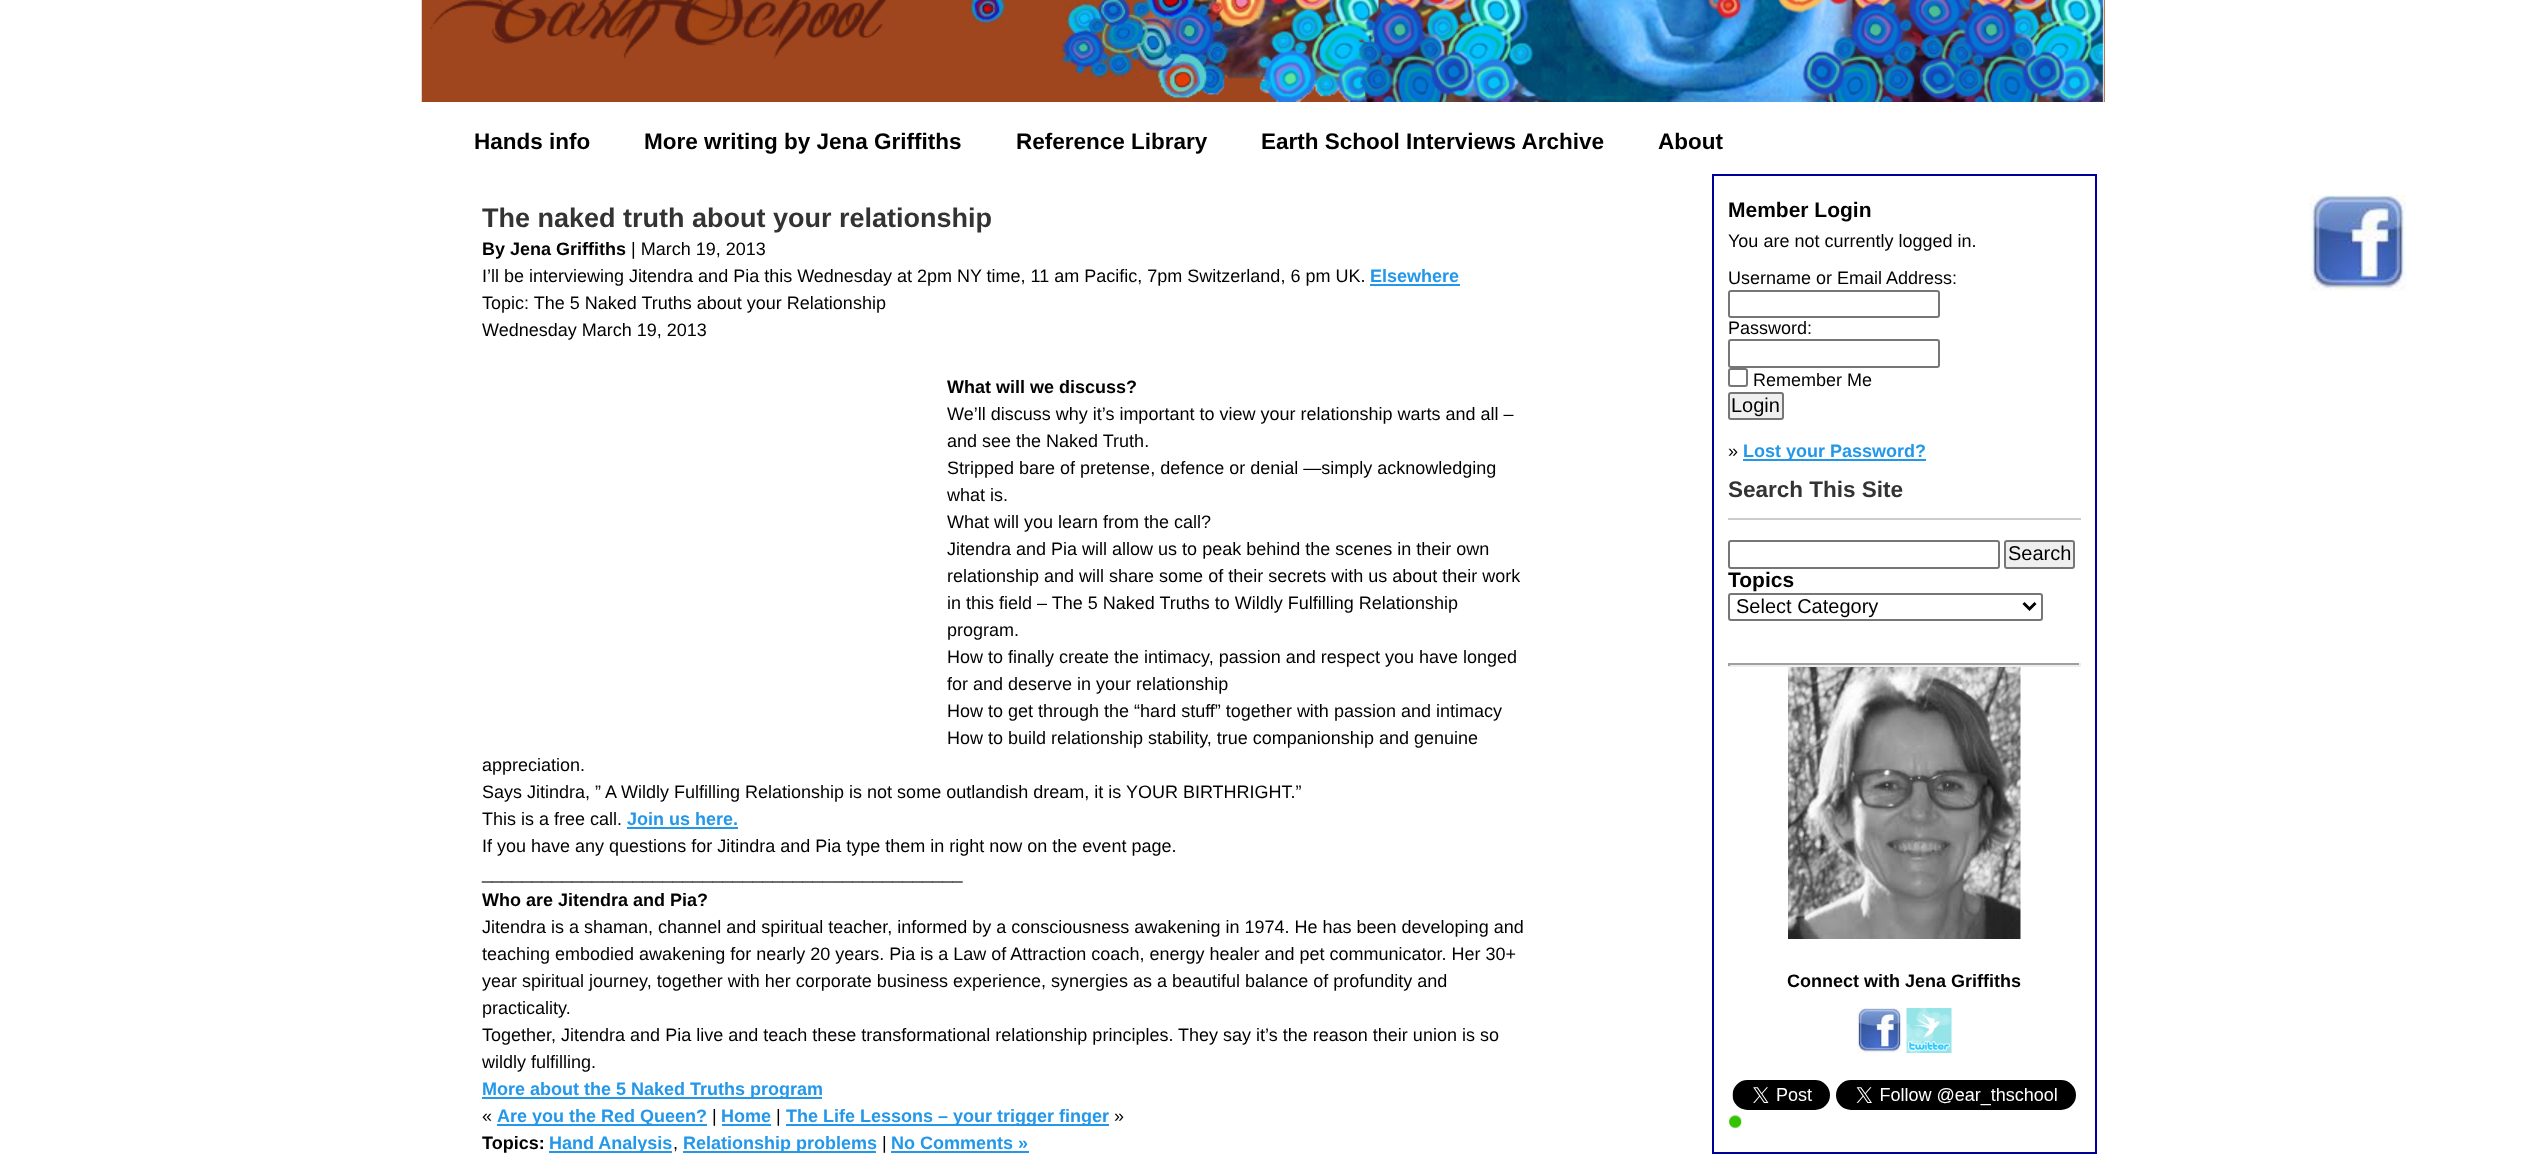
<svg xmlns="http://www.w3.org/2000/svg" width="2526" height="1159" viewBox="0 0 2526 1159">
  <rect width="100%" height="100%" fill="#ffffff"/>
  <rect x="2104" y="0" width="1" height="102" fill="#a74a23"/>
  <image x="421" y="0" width="1684" height="102" href="img1.png"/>
  <image x="2310" y="195" width="96" height="96" href="img2.png"/>
  <text x="474" y="149" font-family="Liberation Sans" font-size="22.5" font-weight="bold" fill="#000000">Hands info</text>
  <text x="644" y="149" font-family="Liberation Sans" font-size="22.5" font-weight="bold" fill="#000000">More writing by Jena Griffiths</text>
  <text x="1016" y="149" font-family="Liberation Sans" font-size="22.5" font-weight="bold" fill="#000000">Reference Library</text>
  <text x="1261" y="149" font-family="Liberation Sans" font-size="22.5" font-weight="bold" fill="#000000">Earth School Interviews Archive</text>
  <text x="1658" y="149" font-family="Liberation Sans" font-size="22.5" font-weight="bold" fill="#000000">About</text>
  <text x="482" y="227" font-family="Liberation Sans" font-size="27" font-weight="bold" fill="#333333">The naked truth about your relationship</text>
  <text x="482" y="255" font-family="Liberation Sans" font-size="18" font-weight="bold" fill="#000000">By Jena Griffiths</text>
  <text x="631" y="255" font-family="Liberation Sans" font-size="18" fill="#000000">| March 19, 2013</text>
  <text x="482" y="282" font-family="Liberation Sans" font-size="18" fill="#000000">I’ll be interviewing Jitendra and Pia this Wednesday at 2pm NY time, 11 am Pacific, 7pm Switzerland, 6 pm UK.</text>
  <text x="1370" y="282" font-family="Liberation Sans" font-size="18" font-weight="bold" fill="#2397e9">Elsewhere</text>
  <rect x="1370" y="284" width="90" height="2" fill="#2397e9"/>
  <text x="482" y="309" font-family="Liberation Sans" font-size="18" fill="#000000">Topic: The 5 Naked Truths about your Relationship</text>
  <text x="482" y="336" font-family="Liberation Sans" font-size="18" fill="#000000">Wednesday March 19, 2013</text>
  <text x="947" y="393" font-family="Liberation Sans" font-size="18" font-weight="bold" fill="#000000">What will we discuss?</text>
  <text x="947" y="420" font-family="Liberation Sans" font-size="18" fill="#000000">We’ll discuss why it’s important to view your relationship warts and all –</text>
  <text x="947" y="447" font-family="Liberation Sans" font-size="18" fill="#000000">and see the Naked Truth.</text>
  <text x="947" y="474" font-family="Liberation Sans" font-size="18" fill="#000000">Stripped bare of pretense, defence or denial —simply acknowledging</text>
  <text x="947" y="501" font-family="Liberation Sans" font-size="18" fill="#000000">what is.</text>
  <text x="947" y="528" font-family="Liberation Sans" font-size="18" fill="#000000">What will you learn from the call?</text>
  <text x="947" y="555" font-family="Liberation Sans" font-size="18" fill="#000000">Jitendra and Pia will allow us to peak behind the scenes in their own</text>
  <text x="947" y="582" font-family="Liberation Sans" font-size="18" fill="#000000">relationship and will share some of their secrets with us about their work</text>
  <text x="947" y="609" font-family="Liberation Sans" font-size="18" fill="#000000">in this field – The 5 Naked Truths to Wildly Fulfilling Relationship</text>
  <text x="947" y="636" font-family="Liberation Sans" font-size="18" fill="#000000">program.</text>
  <text x="947" y="663" font-family="Liberation Sans" font-size="18" fill="#000000">How to finally create the intimacy, passion and respect you have longed</text>
  <text x="947" y="690" font-family="Liberation Sans" font-size="18" fill="#000000">for and deserve in your relationship</text>
  <text x="947" y="717" font-family="Liberation Sans" font-size="18" fill="#000000">How to get through the “hard stuff” together with passion and intimacy</text>
  <text x="947" y="744" font-family="Liberation Sans" font-size="18" fill="#000000">How to build relationship stability, true companionship and genuine</text>
  <text x="482" y="771" font-family="Liberation Sans" font-size="18" fill="#000000">appreciation.</text>
  <text x="482" y="798" font-family="Liberation Sans" font-size="18" fill="#000000">Says Jitindra, ”</text>
  <text x="605" y="798" font-family="Liberation Sans" font-size="18" fill="#000000">A Wildly Fulfilling Relationship is not some outlandish dream, it is YOUR BIRTHRIGHT.”</text>
  <text x="482" y="825" font-family="Liberation Sans" font-size="18" fill="#000000">This is a free call.</text>
  <text x="627" y="825" font-family="Liberation Sans" font-size="18" font-weight="bold" fill="#2397e9">Join us here.</text>
  <rect x="627" y="827" width="111" height="2" fill="#2397e9"/>
  <text x="482" y="852" font-family="Liberation Sans" font-size="18" fill="#000000">If you have any questions for Jitindra and Pia type them in right now on the event page.</text>
  <text x="482" y="879" font-family="Liberation Sans" font-size="18" fill="#000000">________________________________________________</text>
  <text x="482" y="906" font-family="Liberation Sans" font-size="18" font-weight="bold" fill="#000000">Who are Jitendra and Pia?</text>
  <text x="482" y="933" font-family="Liberation Sans" font-size="18" fill="#000000">Jitendra is a shaman, channel and spiritual teacher, informed by a consciousness awakening in 1974. He has been developing and</text>
  <text x="482" y="960" font-family="Liberation Sans" font-size="18" fill="#000000">teaching embodied awakening for nearly 20 years. Pia is a Law of Attraction coach, energy healer and pet communicator. Her 30+</text>
  <text x="482" y="987" font-family="Liberation Sans" font-size="18" fill="#000000">year spiritual journey, together with her corporate business experience, synergies as a beautiful balance of profundity and</text>
  <text x="482" y="1014" font-family="Liberation Sans" font-size="18" fill="#000000">practicality.</text>
  <text x="482" y="1041" font-family="Liberation Sans" font-size="18" fill="#000000">Together, Jitendra and Pia live and teach these transformational relationship principles. They say it’s the reason their union is so</text>
  <text x="482" y="1068" font-family="Liberation Sans" font-size="18" fill="#000000">wildly fulfilling.</text>
  <rect x="482" y="1097" width="340" height="2" fill="#2397e9"/>
  <text x="482" y="1095" font-family="Liberation Sans" font-size="18" font-weight="bold" fill="#2397e9">More about the 5 Naked Truths program</text>
  <text x="482" y="1122" font-family="Liberation Sans" font-size="18" fill="#000000">«</text>
  <rect x="497" y="1124" width="210" height="2" fill="#2397e9"/>
  <text x="497" y="1122" font-family="Liberation Sans" font-size="18" font-weight="bold" fill="#2397e9">Are you the Red Queen?</text>
  <text x="712" y="1122" font-family="Liberation Sans" font-size="18" fill="#000000">|</text>
  <text x="721" y="1122" font-family="Liberation Sans" font-size="18" font-weight="bold" fill="#2397e9">Home</text>
  <rect x="722" y="1124" width="49" height="2" fill="#2397e9"/>
  <text x="776" y="1122" font-family="Liberation Sans" font-size="18" fill="#000000">|</text>
  <rect x="786" y="1124" width="323" height="2" fill="#2397e9"/>
  <text x="786" y="1122" font-family="Liberation Sans" font-size="18" font-weight="bold" fill="#2397e9">The Life Lessons – your trigger finger</text>
  <text x="1114" y="1122" font-family="Liberation Sans" font-size="18" fill="#000000">»</text>
  <text x="482" y="1149" font-family="Liberation Sans" font-size="18" font-weight="bold" fill="#000000">Topics:</text>
  <rect x="549" y="1151" width="123" height="2" fill="#2397e9"/>
  <text x="549" y="1149" font-family="Liberation Sans" font-size="18" font-weight="bold" fill="#2397e9">Hand Analysis</text>
  <text x="673" y="1149" font-family="Liberation Sans" font-size="18" fill="#000000">,</text>
  <rect x="683" y="1151" width="193" height="2" fill="#2397e9"/>
  <text x="683" y="1149" font-family="Liberation Sans" font-size="18" font-weight="bold" fill="#2397e9">Relationship problems</text>
  <text x="882" y="1149" font-family="Liberation Sans" font-size="18" fill="#000000">|</text>
  <text x="891" y="1149" font-family="Liberation Sans" font-size="18" font-weight="bold" fill="#2397e9">No Comments »</text>
  <rect x="891" y="1151" width="138" height="2" fill="#2397e9"/>
  <rect x="1713" y="175" width="383" height="978" fill="none" stroke="#000099" stroke-width="2"/>
  <text x="1728" y="217" font-family="Liberation Sans" font-size="21" font-weight="bold" fill="#000000">Member Login</text>
  <text x="1728" y="247" font-family="Liberation Sans" font-size="18" fill="#000000">You are not currently logged in.</text>
  <text x="1728" y="284" font-family="Liberation Sans" font-size="18" fill="#000000">Username or Email Address:</text>
  <rect x="1729" y="291" width="210" height="26" rx="2" fill="none" stroke="#767676" stroke-width="2"/>
  <text x="1728" y="334" font-family="Liberation Sans" font-size="18" fill="#000000">Password:</text>
  <rect x="1729" y="340" width="210" height="27" rx="2" fill="none" stroke="#767676" stroke-width="2"/>
  <rect x="1729" y="369" width="18" height="17" rx="2" fill="none" stroke="#767676" stroke-width="2"/>
  <text x="1753" y="386" font-family="Liberation Sans" font-size="18" fill="#000000">Remember Me</text>
  <rect x="1729" y="393" width="54" height="26" rx="2" fill="#efefef" stroke="#767676" stroke-width="2"/>
  <text x="1731" y="412" font-family="Liberation Sans" font-size="20" fill="#000000">Login</text>
  <text x="1728" y="457" font-family="Liberation Sans" font-size="18" fill="#000000">»</text>
  <rect x="1743" y="459" width="183" height="2" fill="#2397e9"/>
  <text x="1743" y="457" font-family="Liberation Sans" font-size="18" font-weight="bold" fill="#2397e9">Lost your Password?</text>
  <rect x="1728" y="518" width="353" height="2" fill="#cccccc"/>
  <text x="1728" y="497" font-family="Liberation Sans" font-size="22.5" font-weight="bold" fill="#333333">Search This Site</text>
  <rect x="1729" y="541" width="270" height="27" rx="2" fill="none" stroke="#767676" stroke-width="2"/>
  <rect x="2005" y="541" width="69" height="27" rx="2" fill="#efefef" stroke="#767676" stroke-width="2"/>
  <text x="2008" y="560" font-family="Liberation Sans" font-size="20" fill="#000000">Search</text>
  <text x="1728" y="587" font-family="Liberation Sans" font-size="21" font-weight="bold" fill="#000000">Topics</text>
  <rect x="1729" y="594" width="313" height="26" rx="2" fill="none" stroke="#767676" stroke-width="2"/>
  <path d="M2023.5 603L2029.5 609L2035.5 603" fill="none" stroke="#000000" stroke-width="3"/>
  <text x="1736" y="613" font-family="Liberation Sans" font-size="20" fill="#000000">Select Category</text>
  <rect x="1728" y="663" width="353" height="2" fill="#9f9f9f"/>
  <rect x="2079" y="663" width="2" height="3" fill="#eeeeee"/>
  <rect x="1728" y="665" width="353" height="2" fill="#eeeeee"/>
  <rect x="1728" y="663" width="2" height="3" fill="#9f9f9f"/>
  <image x="1788" y="667" width="233" height="272" href="img3.png"/>
  <text x="1787" y="987" font-family="Liberation Sans" font-size="18" font-weight="bold" fill="#000000">Connect with Jena Griffiths</text>
  <image x="1857" y="1008" width="45" height="45" href="img4.png"/>
  <image x="1906" y="1008" width="46" height="45" href="img5.png"/>
  <image x="1732" y="1080" width="98" height="30" href="img6.png"/>
  <image x="1836" y="1080" width="240" height="30" href="img7.png"/>
  <image x="1729" y="1115" width="13" height="14" href="img8.png"/>
</svg>
